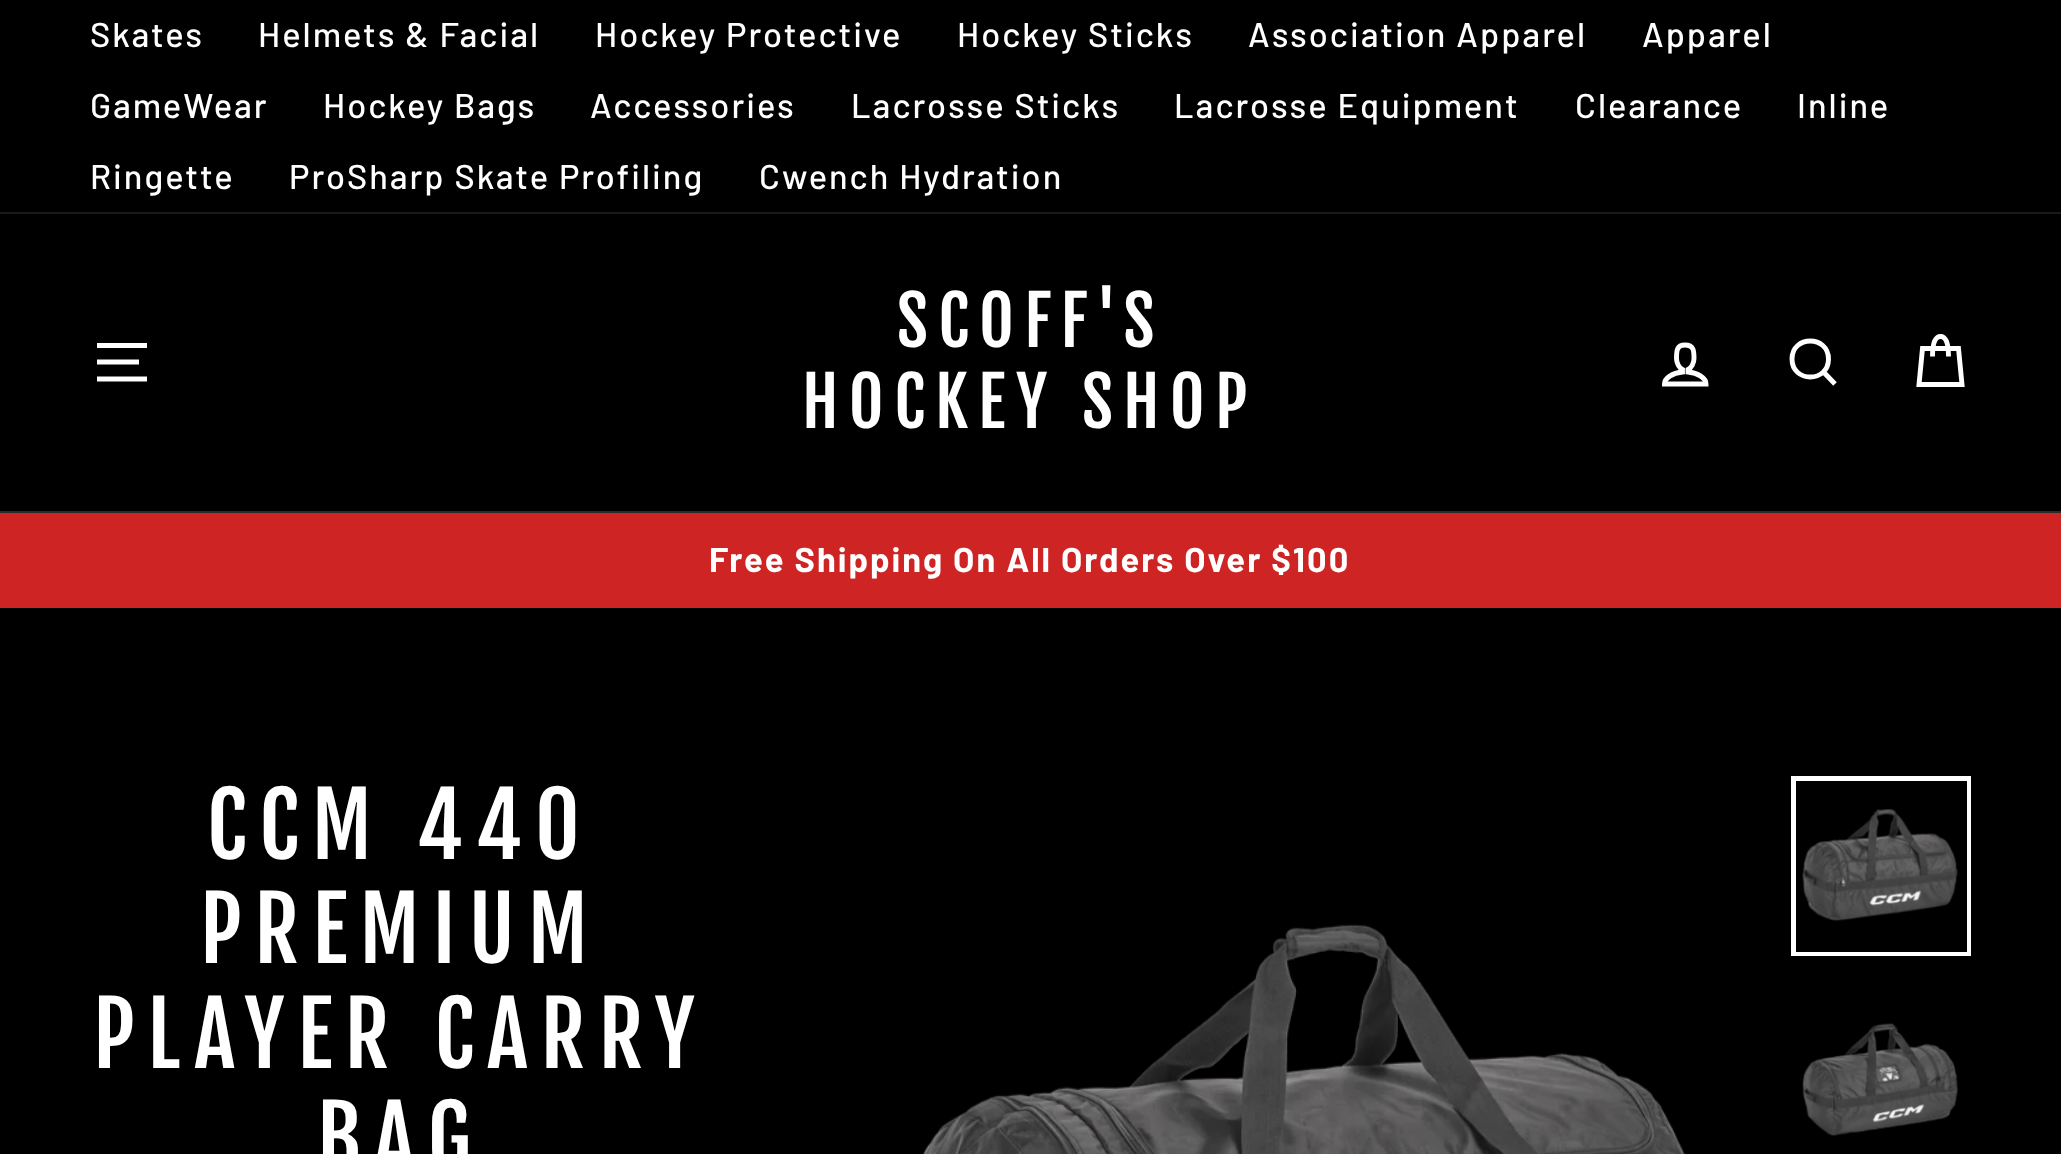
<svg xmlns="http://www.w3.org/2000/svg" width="2061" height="1154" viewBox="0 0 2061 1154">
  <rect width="100%" height="100%" fill="#000000"/>
  <text x="90" y="47" font-family="Barlow" font-size="34.4" font-weight="500" letter-spacing="2" fill="#ffffff">Skates</text>
  <text x="258" y="47" font-family="Barlow" font-size="34.4" font-weight="500" letter-spacing="2" fill="#ffffff">Helmets &amp; Facial</text>
  <text x="595" y="47" font-family="Barlow" font-size="34.4" font-weight="500" letter-spacing="2" fill="#ffffff">Hockey Protective</text>
  <text x="957" y="47" font-family="Barlow" font-size="34.4" font-weight="500" letter-spacing="2" fill="#ffffff">Hockey Sticks</text>
  <text x="1248" y="47" font-family="Barlow" font-size="34.4" font-weight="500" letter-spacing="2" fill="#ffffff">Association Apparel</text>
  <text x="1642" y="47" font-family="Barlow" font-size="34.4" font-weight="500" letter-spacing="2" fill="#ffffff">Apparel</text>
  <text x="90" y="118" font-family="Barlow" font-size="34.4" font-weight="500" letter-spacing="2" fill="#ffffff">GameWear</text>
  <text x="323" y="118" font-family="Barlow" font-size="34.4" font-weight="500" letter-spacing="2" fill="#ffffff">Hockey Bags</text>
  <text x="590" y="118" font-family="Barlow" font-size="34.4" font-weight="500" letter-spacing="2" fill="#ffffff">Accessories</text>
  <text x="851" y="118" font-family="Barlow" font-size="34.4" font-weight="500" letter-spacing="2" fill="#ffffff">Lacrosse Sticks</text>
  <text x="1174" y="118" font-family="Barlow" font-size="34.4" font-weight="500" letter-spacing="2" fill="#ffffff">Lacrosse Equipment</text>
  <text x="1575" y="118" font-family="Barlow" font-size="34.4" font-weight="500" letter-spacing="2" fill="#ffffff">Clearance</text>
  <text x="1797" y="118" font-family="Barlow" font-size="34.4" font-weight="500" letter-spacing="2" fill="#ffffff">Inline</text>
  <text x="90" y="189" font-family="Barlow" font-size="34.4" font-weight="500" letter-spacing="2" fill="#ffffff">Ringette</text>
  <text x="289" y="189" font-family="Barlow" font-size="34.4" font-weight="500" letter-spacing="2" fill="#ffffff">ProSharp Skate Profiling</text>
  <text x="759" y="189" font-family="Barlow" font-size="34.4" font-weight="500" letter-spacing="2" fill="#ffffff">Cwench Hydration</text>
  <rect x="0" y="212" width="2061" height="2" fill="#1a1a1a"/>
  <rect x="0" y="511" width="2061" height="2" fill="#2b2a27"/>
  <path d="M97 345.5H147M97 362H139M97 379H147" fill="none" stroke="#ffffff" stroke-width="4.9"/>
  <text x="897" y="347" font-family="Fjalla One" font-size="67.5" letter-spacing="10.1" fill="#ffffff">SCOFF'S</text>
  <text x="802" y="428" font-family="Fjalla One" font-size="67.5" letter-spacing="10.1" fill="#ffffff">HOCKEY SHOP</text>
  <path d="M1688 372V369.5C1691.5 368 1694 363 1694 358.5C1694 351 1694 345 1685 345C1676.5 345 1676.5 351 1676.5 358.5C1676.5 363 1679 368 1682.5 369.5V372C1672.5 373 1664.5 378 1664.5 384H1706C1706 378 1698 373 1688 372Z" fill="none" stroke="#ffffff" stroke-width="4.9"/>
  <path d="M1828.5 359C1828.5 383 1792 383 1792 359C1792 335 1828.5 335 1828.5 359ZM1835 384L1823.5 372" fill="none" stroke="#ffffff" stroke-width="4.9"/>
  <path d="M1932.5 356.5C1932.5 341 1936 336.5 1940.5 336.5C1945 336.5 1948.5 341 1948.5 356.5M1922.5 348.5H1958.5L1962 384.5H1919Z" fill="none" stroke="#ffffff" stroke-width="4.9"/>
  <rect x="0" y="513" width="2061" height="95" fill="#cf2424"/>
  <text x="709" y="572" font-family="Barlow" font-size="34.4" font-weight="bold" letter-spacing="2" fill="#ffffff">Free Shipping On All Orders Over $100</text>
  <text x="207" y="859" font-family="Fjalla One" font-size="87" letter-spacing="13" fill="#ffffff">CCM 440</text>
  <text x="200" y="963" font-family="Fjalla One" font-size="87" letter-spacing="13" fill="#ffffff">PREMIUM</text>
  <text x="93" y="1068" font-family="Fjalla One" font-size="87" letter-spacing="13" fill="#ffffff">PLAYER CARRY</text>
  <text x="317" y="1172" font-family="Fjalla One" font-size="87" letter-spacing="13" fill="#ffffff">BAG</text>
  <image x="923" y="924" width="762" height="230" href="img1.png"/>
  <rect x="1793.5" y="778.5" width="175" height="175" fill="none" stroke="#ffffff" stroke-width="5"/>
  <rect x="1796" y="781" width="171" height="171" fill="#000000"/>
  <image x="1802" y="809" width="156" height="112" href="img2.png"/>
  <image x="1802" y="1023" width="157" height="113" href="img3.png"/>
</svg>
